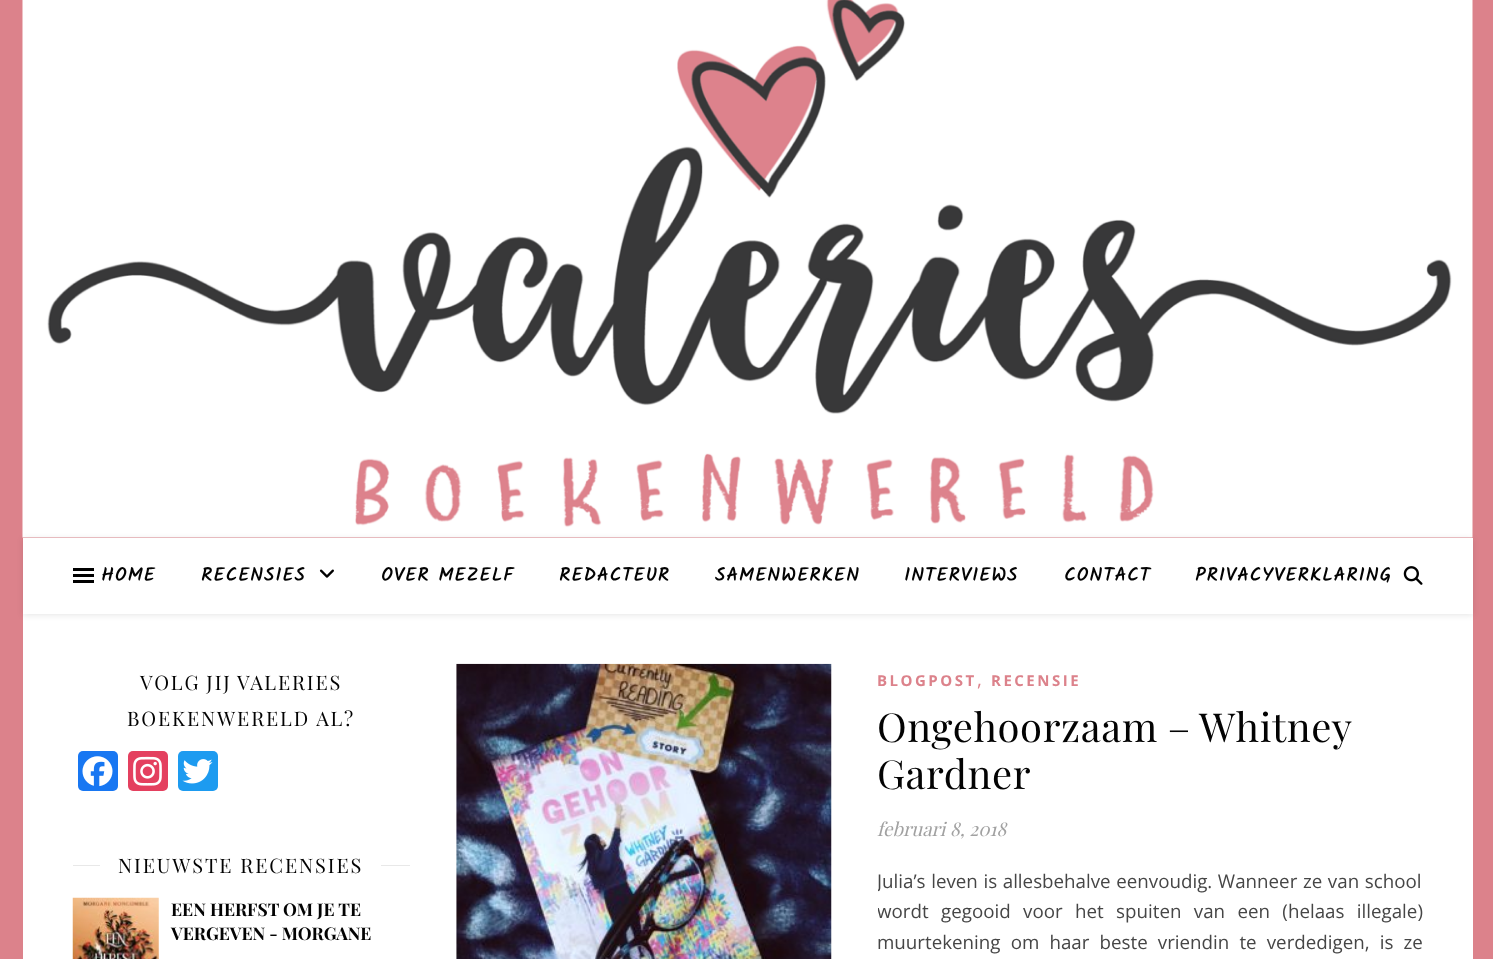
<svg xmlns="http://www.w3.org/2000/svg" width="1493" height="959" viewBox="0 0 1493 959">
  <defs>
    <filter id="blur1" x="-50%" y="-200%" width="200%" height="500%"><feGaussianBlur stdDeviation="3"/></filter>
    <clipPath id="clip1"><rect x="878" y="865" width="545" height="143"/></clipPath>
  </defs>
  <rect width="100%" height="100%" fill="#dc828b"/>
  <image x="22" y="0" width="1451" height="538" href="img1.png"/>
  <rect x="23" y="614" width="1450" height="345" fill="#ffffff"/>
  <rect x="23" y="539" width="1450" height="76" fill="#000000" fill-opacity="0.1" filter="url(#blur1)"/>
  <rect x="23" y="538" width="1450" height="76" fill="#ffffff"/>
  <rect x="73" y="568" width="21" height="3" fill="#000000"/>
  <rect x="73" y="574" width="21" height="3" fill="#000000"/>
  <rect x="73" y="580" width="21" height="3" fill="#000000"/>
  <text x="101" y="581" font-family="Kalam" font-size="18.75" font-weight="bold" letter-spacing="1.25" fill="#030303">HOME</text>
  <text x="201" y="581" font-family="Kalam" font-size="18.75" font-weight="bold" letter-spacing="1.25" fill="#030303">RECENSIES</text>
  <image x="319" y="569" width="15" height="9" href="img2.png"/>
  <text x="381" y="581" font-family="Kalam" font-size="18.75" font-weight="bold" letter-spacing="1.25" fill="#030303">OVER MEZELF</text>
  <text x="559" y="581" font-family="Kalam" font-size="18.75" font-weight="bold" letter-spacing="1.25" fill="#030303">REDACTEUR</text>
  <text x="715" y="581" font-family="Kalam" font-size="18.75" font-weight="bold" letter-spacing="1.25" fill="#030303">SAMENWERKEN</text>
  <text x="904" y="581" font-family="Kalam" font-size="18.75" font-weight="bold" letter-spacing="1.25" fill="#030303">INTERVIEWS</text>
  <text x="1064" y="581" font-family="Kalam" font-size="18.75" font-weight="bold" letter-spacing="1.25" fill="#030303">CONTACT</text>
  <text x="1195" y="581" font-family="Kalam" font-size="18.75" font-weight="bold" letter-spacing="1.25" fill="#030303">PRIVACYVERKLARING</text>
  <image x="1403" y="566" width="20" height="19" href="img3.png"/>
  <text x="140" y="690" word-spacing="-1" font-family="Playfair Display" font-size="20" letter-spacing="1.9" fill="#030303">VOLG JIJ VALERIES</text>
  <text x="127" y="726" font-family="Playfair Display" font-size="20" letter-spacing="1.9" fill="#030303">BOEKENWERELD AL?</text>
  <rect x="78" y="751" width="40" height="40" rx="5" fill="#1877f2"/>
  <image x="82" y="756" width="31" height="31" href="img4.png"/>
  <rect x="128" y="751" width="40" height="40" rx="5" fill="#e4405f"/>
  <image x="133" y="756" width="29" height="30" href="img5.png"/>
  <rect x="178" y="751" width="40" height="40" rx="5" fill="#1d9bf0"/>
  <image x="182" y="759" width="31" height="25" href="img6.png"/>
  <rect x="73" y="865" width="27" height="1" fill="#e8e8e8"/>
  <text x="118" y="873" font-family="Playfair Display" font-size="20" letter-spacing="1.9" fill="#030303">NIEUWSTE RECENSIES</text>
  <rect x="381" y="865" width="29" height="1" fill="#e8e8e8"/>
  <image x="72" y="897" width="87" height="62" href="img7.png"/>
  <text x="171" y="916" font-family="Playfair Display" font-size="17.5" font-weight="bold" fill="#030303">EEN HERFST OM JE TE</text>
  <text x="171" y="940" font-family="Playfair Display" font-size="17.5" font-weight="bold" fill="#030303">VERGEVEN - MORGANE</text>
  <image x="456" y="663" width="376" height="296" href="img8.png"/>
  <text x="877" y="686" font-family="Open Sans" font-size="15" font-weight="bold" letter-spacing="2.5" fill="#dc828b">BLOGPOST</text>
  <text x="977" y="686" font-family="Open Sans" font-size="18.75" fill="#dc828b">,</text>
  <text x="991" y="686" font-family="Open Sans" font-size="15" font-weight="bold" letter-spacing="2.5" fill="#dc828b">RECENSIE</text>
  <text x="877" y="742" word-spacing="-1" font-family="Playfair Display" font-size="40" letter-spacing="0.6" fill="#030303">Ongehoorzaam – Whitney</text>
  <text x="877" y="789" font-family="Playfair Display" font-size="40" letter-spacing="0.6" fill="#030303">Gardner</text>
  <text x="877" y="836" font-family="Playfair Display" font-size="18.75" font-style="italic" fill="#a1a1a1">februari 8, 2018</text>
  <g clip-path="url(#clip1)">
    <text x="877" y="888" word-spacing="0.75" font-family="Open Sans" font-size="18.75" fill="#464646">Julia’s leven is allesbehalve eenvoudig. Wanneer ze van school</text>
    <text x="877" y="918" word-spacing="7.5" font-family="Open Sans" font-size="18.75" fill="#464646">wordt gegooid voor het spuiten van een (helaas illegale)</text>
  </g>
  <text x="877" y="949" word-spacing="5.25" font-family="Open Sans" font-size="18.75" fill="#464646">muurtekening om haar beste vriendin te verdedigen, is ze</text>
</svg>
